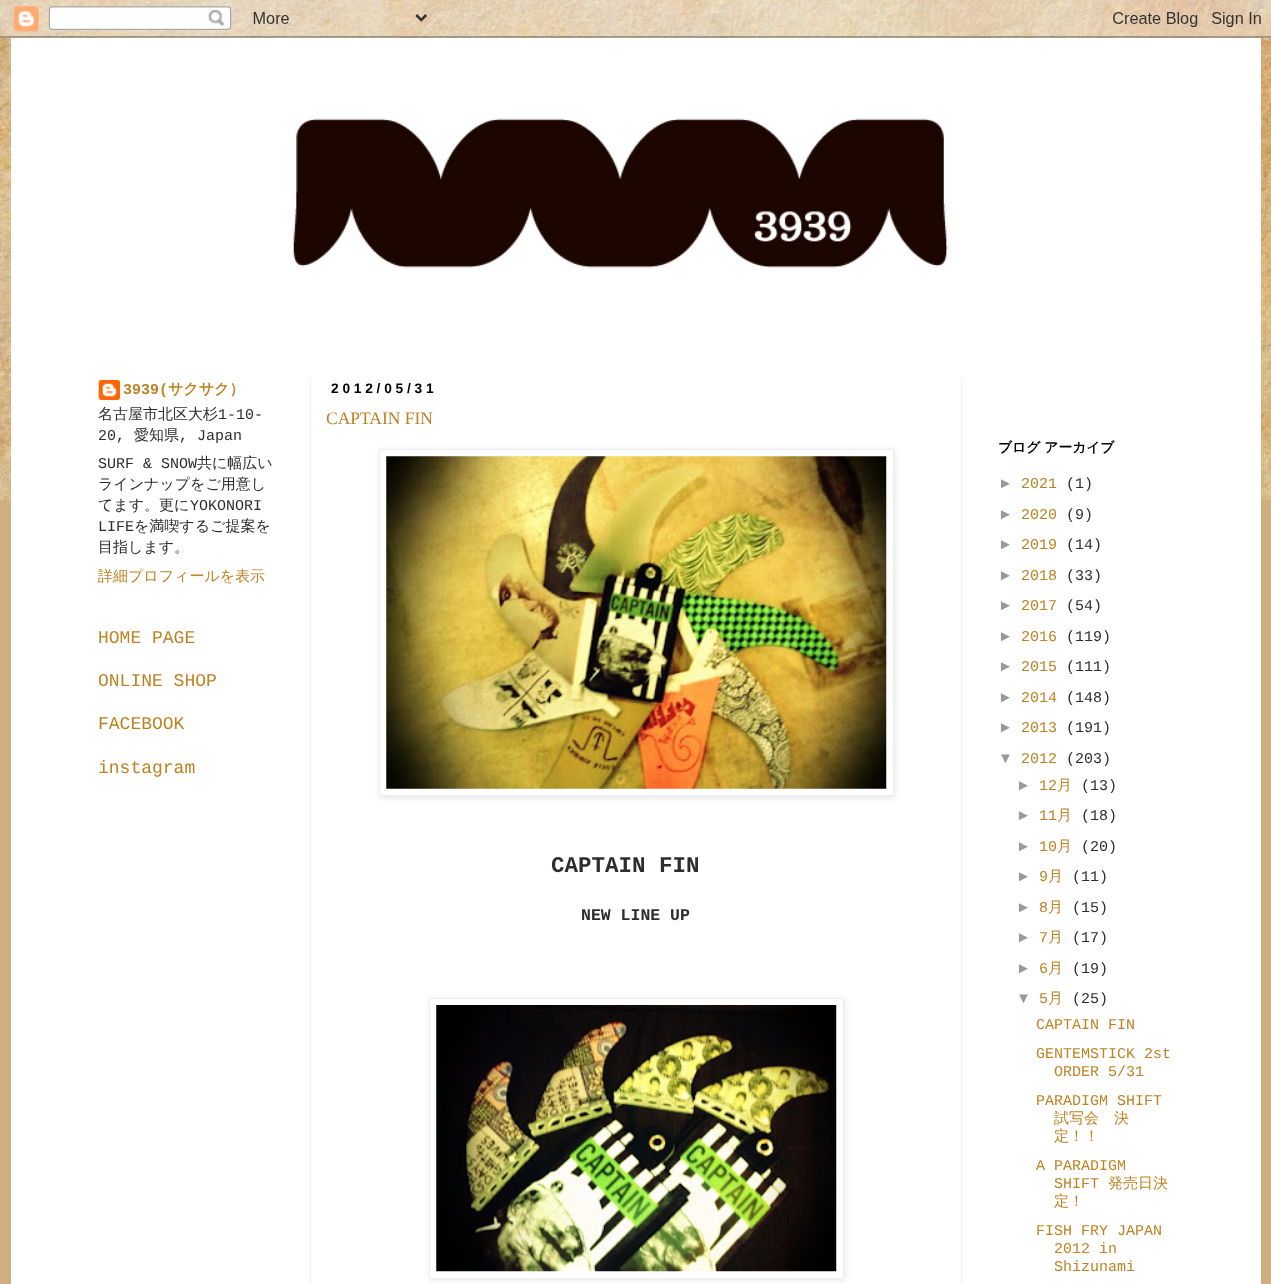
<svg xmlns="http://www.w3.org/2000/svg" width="1271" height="1284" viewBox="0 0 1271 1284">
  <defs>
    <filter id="blur1" x="-50%" y="-200%" width="200%" height="500%"><feGaussianBlur stdDeviation="3"/></filter>
  </defs>
  <rect width="100%" height="100%" fill="#d0ae81"/>
  <image x="0" y="0" width="1271" height="500" href="img1.png"/>
  <image x="0" y="0" width="1271" height="38" href="img2.png"/>
  <rect x="11" y="38" width="1250" height="1246" fill="#ffffff"/>
  <image x="293" y="118" width="655" height="150" href="img3.png"/>
  <rect x="310" y="380" width="1" height="904" fill="#eeeeee"/>
  <rect x="961" y="380" width="1" height="904" fill="#eeeeee"/>
  <image x="98" y="380" width="22" height="20" href="img4.png"/>
  <text x="123" y="394" font-family="Liberation Mono" font-size="15" font-weight="bold" fill="#bd8222">3939(</text>
  <text x="168" y="394" font-family="WenQuanYi Zen Hei" font-size="15" font-weight="bold" fill="#bd8222">サクサク）</text>
  <text x="98" y="419" font-family="WenQuanYi Zen Hei" font-size="15" font-weight="500" fill="#2d2d2d">名古屋市北区大杉</text>
  <text x="218" y="419" font-family="Liberation Mono" font-size="15" fill="#2d2d2d">1-10-</text>
  <text x="98" y="440" font-family="Liberation Mono" font-size="15" fill="#2d2d2d">20,</text>
  <text x="134" y="440" font-family="WenQuanYi Zen Hei" font-size="15" font-weight="500" fill="#2d2d2d">愛知県</text>
  <text x="179" y="440" font-family="Liberation Mono" font-size="15" fill="#2d2d2d">, Japan</text>
  <text x="98" y="468" font-family="Liberation Mono" font-size="15" fill="#2d2d2d">SURF &amp; SNOW</text>
  <text x="197" y="468" font-family="WenQuanYi Zen Hei" font-size="15" font-weight="500" fill="#2d2d2d">共に幅広い</text>
  <text x="98" y="489" font-family="WenQuanYi Zen Hei" font-size="15" font-weight="500" fill="#2d2d2d">ラインナップをご用意し</text>
  <text x="98" y="510" font-family="WenQuanYi Zen Hei" font-size="15" font-weight="500" fill="#2d2d2d">てます。更に</text>
  <text x="190" y="510" font-family="Liberation Mono" font-size="15" fill="#2d2d2d">YOKONORI</text>
  <text x="98" y="531" font-family="Liberation Mono" font-size="15" fill="#2d2d2d">LIFE</text>
  <text x="134" y="531" font-family="WenQuanYi Zen Hei" font-size="15" font-weight="500" fill="#2d2d2d">を満喫するご提案を</text>
  <text x="98" y="552" font-family="WenQuanYi Zen Hei" font-size="15" font-weight="500" fill="#2d2d2d">目指します。</text>
  <text x="98" y="581" font-family="WenQuanYi Zen Hei" font-size="15" font-weight="500" fill="#bd8222">詳細プロフィールを表示</text>
  <text x="98" y="643" font-family="Liberation Mono" font-size="18" fill="#bd8222">HOME PAGE</text>
  <text x="98" y="686" font-family="Liberation Mono" font-size="18" fill="#bd8222">ONLINE SHOP</text>
  <text x="98" y="729" font-family="Liberation Mono" font-size="18" fill="#bd8222">FACEBOOK</text>
  <text x="98" y="773" font-family="Liberation Mono" font-size="18" fill="#bd8222">instagram</text>
  <text x="331" y="393" font-family="Liberation Sans" font-size="13.75" font-weight="bold" letter-spacing="3.75" fill="#000000">2012/05/31</text>
  <text x="326" y="424" font-family="Liberation Serif" font-size="17.5" fill="#bd8222">CAPTAIN FIN</text>
  <rect x="380" y="450" width="515" height="348" fill="#000000" fill-opacity="0.1" filter="url(#blur1)"/>
  <rect x="379.5" y="449.5" width="514" height="346" fill="#ffffff" stroke="#eeeeee"/>
  <image x="386" y="456" width="501" height="333" href="img5.png"/>
  <text x="551" y="872" font-family="Liberation Mono" font-size="22.5" font-weight="bold" fill="#2d2d2d">CAPTAIN FIN</text>
  <text x="581" y="920" font-family="Liberation Mono" font-size="16.5" font-weight="bold" fill="#2d2d2d">NEW LINE UP</text>
  <rect x="430" y="999" width="415" height="281" fill="#000000" fill-opacity="0.1" filter="url(#blur1)"/>
  <rect x="429.5" y="998.5" width="414" height="280" fill="#ffffff" stroke="#eeeeee"/>
  <image x="436" y="1005" width="401" height="267" href="img6.png"/>
  <text x="998" y="452" font-family="WenQuanYi Zen Hei" font-size="13.75" font-weight="bold" fill="#000000">ブログ アーカイブ</text>
  <text x="998" y="488" font-family="Liberation Sans" font-size="15" fill="#999999">►</text>
  <text x="1021" y="488" font-family="Liberation Mono" font-size="15" fill="#bd8222">2021</text>
  <text x="1066" y="488" font-family="Liberation Mono" font-size="15" fill="#2d2d2d">(1)</text>
  <text x="998" y="519" font-family="Liberation Sans" font-size="15" fill="#999999">►</text>
  <text x="1021" y="519" font-family="Liberation Mono" font-size="15" fill="#bd8222">2020</text>
  <text x="1066" y="519" font-family="Liberation Mono" font-size="15" fill="#2d2d2d">(9)</text>
  <text x="998" y="549" font-family="Liberation Sans" font-size="15" fill="#999999">►</text>
  <text x="1021" y="549" font-family="Liberation Mono" font-size="15" fill="#bd8222">2019</text>
  <text x="1066" y="549" font-family="Liberation Mono" font-size="15" fill="#2d2d2d">(14)</text>
  <text x="998" y="580" font-family="Liberation Sans" font-size="15" fill="#999999">►</text>
  <text x="1021" y="580" font-family="Liberation Mono" font-size="15" fill="#bd8222">2018</text>
  <text x="1066" y="580" font-family="Liberation Mono" font-size="15" fill="#2d2d2d">(33)</text>
  <text x="998" y="610" font-family="Liberation Sans" font-size="15" fill="#999999">►</text>
  <text x="1021" y="610" font-family="Liberation Mono" font-size="15" fill="#bd8222">2017</text>
  <text x="1066" y="610" font-family="Liberation Mono" font-size="15" fill="#2d2d2d">(54)</text>
  <text x="998" y="641" font-family="Liberation Sans" font-size="15" fill="#999999">►</text>
  <text x="1021" y="641" font-family="Liberation Mono" font-size="15" fill="#bd8222">2016</text>
  <text x="1066" y="641" font-family="Liberation Mono" font-size="15" fill="#2d2d2d">(119)</text>
  <text x="998" y="671" font-family="Liberation Sans" font-size="15" fill="#999999">►</text>
  <text x="1021" y="671" font-family="Liberation Mono" font-size="15" fill="#bd8222">2015</text>
  <text x="1066" y="671" font-family="Liberation Mono" font-size="15" fill="#2d2d2d">(111)</text>
  <text x="998" y="702" font-family="Liberation Sans" font-size="15" fill="#999999">►</text>
  <text x="1021" y="702" font-family="Liberation Mono" font-size="15" fill="#bd8222">2014</text>
  <text x="1066" y="702" font-family="Liberation Mono" font-size="15" fill="#2d2d2d">(148)</text>
  <text x="998" y="732" font-family="Liberation Sans" font-size="15" fill="#999999">►</text>
  <text x="1021" y="732" font-family="Liberation Mono" font-size="15" fill="#bd8222">2013</text>
  <text x="1066" y="732" font-family="Liberation Mono" font-size="15" fill="#2d2d2d">(191)</text>
  <text x="998" y="763" font-family="Liberation Sans" font-size="15" fill="#999999">▼</text>
  <text x="1021" y="763" font-family="Liberation Mono" font-size="15" fill="#bd8222">2012</text>
  <text x="1066" y="763" font-family="Liberation Mono" font-size="15" fill="#2d2d2d">(203)</text>
  <text x="1016" y="790" font-family="Liberation Sans" font-size="15" fill="#999999">►</text>
  <text x="1039" y="790" font-family="Liberation Mono" font-size="15" fill="#bd8222">12</text>
  <text x="1057" y="790" font-family="WenQuanYi Zen Hei" font-size="15" font-weight="500" fill="#bd8222">月</text>
  <text x="1081" y="790" font-family="Liberation Mono" font-size="15" fill="#2d2d2d">(13)</text>
  <text x="1016" y="820" font-family="Liberation Sans" font-size="15" fill="#999999">►</text>
  <text x="1039" y="820" font-family="Liberation Mono" font-size="15" fill="#bd8222">11</text>
  <text x="1057" y="820" font-family="WenQuanYi Zen Hei" font-size="15" font-weight="500" fill="#bd8222">月</text>
  <text x="1081" y="820" font-family="Liberation Mono" font-size="15" fill="#2d2d2d">(18)</text>
  <text x="1016" y="851" font-family="Liberation Sans" font-size="15" fill="#999999">►</text>
  <text x="1039" y="851" font-family="Liberation Mono" font-size="15" fill="#bd8222">10</text>
  <text x="1057" y="851" font-family="WenQuanYi Zen Hei" font-size="15" font-weight="500" fill="#bd8222">月</text>
  <text x="1081" y="851" font-family="Liberation Mono" font-size="15" fill="#2d2d2d">(20)</text>
  <text x="1016" y="881" font-family="Liberation Sans" font-size="15" fill="#999999">►</text>
  <text x="1039" y="881" font-family="Liberation Mono" font-size="15" fill="#bd8222">9</text>
  <text x="1048" y="881" font-family="WenQuanYi Zen Hei" font-size="15" font-weight="500" fill="#bd8222">月</text>
  <text x="1072" y="881" font-family="Liberation Mono" font-size="15" fill="#2d2d2d">(11)</text>
  <text x="1016" y="912" font-family="Liberation Sans" font-size="15" fill="#999999">►</text>
  <text x="1039" y="912" font-family="Liberation Mono" font-size="15" fill="#bd8222">8</text>
  <text x="1048" y="912" font-family="WenQuanYi Zen Hei" font-size="15" font-weight="500" fill="#bd8222">月</text>
  <text x="1072" y="912" font-family="Liberation Mono" font-size="15" fill="#2d2d2d">(15)</text>
  <text x="1016" y="942" font-family="Liberation Sans" font-size="15" fill="#999999">►</text>
  <text x="1039" y="942" font-family="Liberation Mono" font-size="15" fill="#bd8222">7</text>
  <text x="1048" y="942" font-family="WenQuanYi Zen Hei" font-size="15" font-weight="500" fill="#bd8222">月</text>
  <text x="1072" y="942" font-family="Liberation Mono" font-size="15" fill="#2d2d2d">(17)</text>
  <text x="1016" y="973" font-family="Liberation Sans" font-size="15" fill="#999999">►</text>
  <text x="1039" y="973" font-family="Liberation Mono" font-size="15" fill="#bd8222">6</text>
  <text x="1048" y="973" font-family="WenQuanYi Zen Hei" font-size="15" font-weight="500" fill="#bd8222">月</text>
  <text x="1072" y="973" font-family="Liberation Mono" font-size="15" fill="#2d2d2d">(19)</text>
  <text x="1016" y="1003" font-family="Liberation Sans" font-size="15" fill="#999999">▼</text>
  <text x="1039" y="1003" font-family="Liberation Mono" font-size="15" fill="#bd8222">5</text>
  <text x="1048" y="1003" font-family="WenQuanYi Zen Hei" font-size="15" font-weight="500" fill="#bd8222">月</text>
  <text x="1072" y="1003" font-family="Liberation Mono" font-size="15" fill="#2d2d2d">(25)</text>
  <text x="1036" y="1029" font-family="Liberation Mono" font-size="15" fill="#bd8222">CAPTAIN FIN</text>
  <text x="1036" y="1058" font-family="Liberation Mono" font-size="15" fill="#bd8222">GENTEMSTICK 2st</text>
  <text x="1054" y="1076" font-family="Liberation Mono" font-size="15" fill="#bd8222">ORDER 5/31</text>
  <text x="1036" y="1105" font-family="Liberation Mono" font-size="15" fill="#bd8222">PARADIGM SHIFT</text>
  <text x="1054" y="1123" font-family="WenQuanYi Zen Hei" font-size="15" font-weight="500" fill="#bd8222">試写会　決</text>
  <text x="1054" y="1141" font-family="WenQuanYi Zen Hei" font-size="15" font-weight="500" fill="#bd8222">定！！</text>
  <text x="1036" y="1170" font-family="Liberation Mono" font-size="15" fill="#bd8222">A PARADIGM</text>
  <text x="1054" y="1188" font-family="Liberation Mono" font-size="15" fill="#bd8222">SHIFT</text>
  <text x="1108" y="1188" font-family="WenQuanYi Zen Hei" font-size="15" font-weight="500" fill="#bd8222">発売日決</text>
  <text x="1054" y="1206" font-family="WenQuanYi Zen Hei" font-size="15" font-weight="500" fill="#bd8222">定！</text>
  <text x="1036" y="1235" font-family="Liberation Mono" font-size="15" fill="#bd8222">FISH FRY JAPAN</text>
  <text x="1054" y="1253" font-family="Liberation Mono" font-size="15" fill="#bd8222">2012 in</text>
  <text x="1054" y="1271" font-family="Liberation Mono" font-size="15" fill="#bd8222">Shizunami</text>
</svg>
